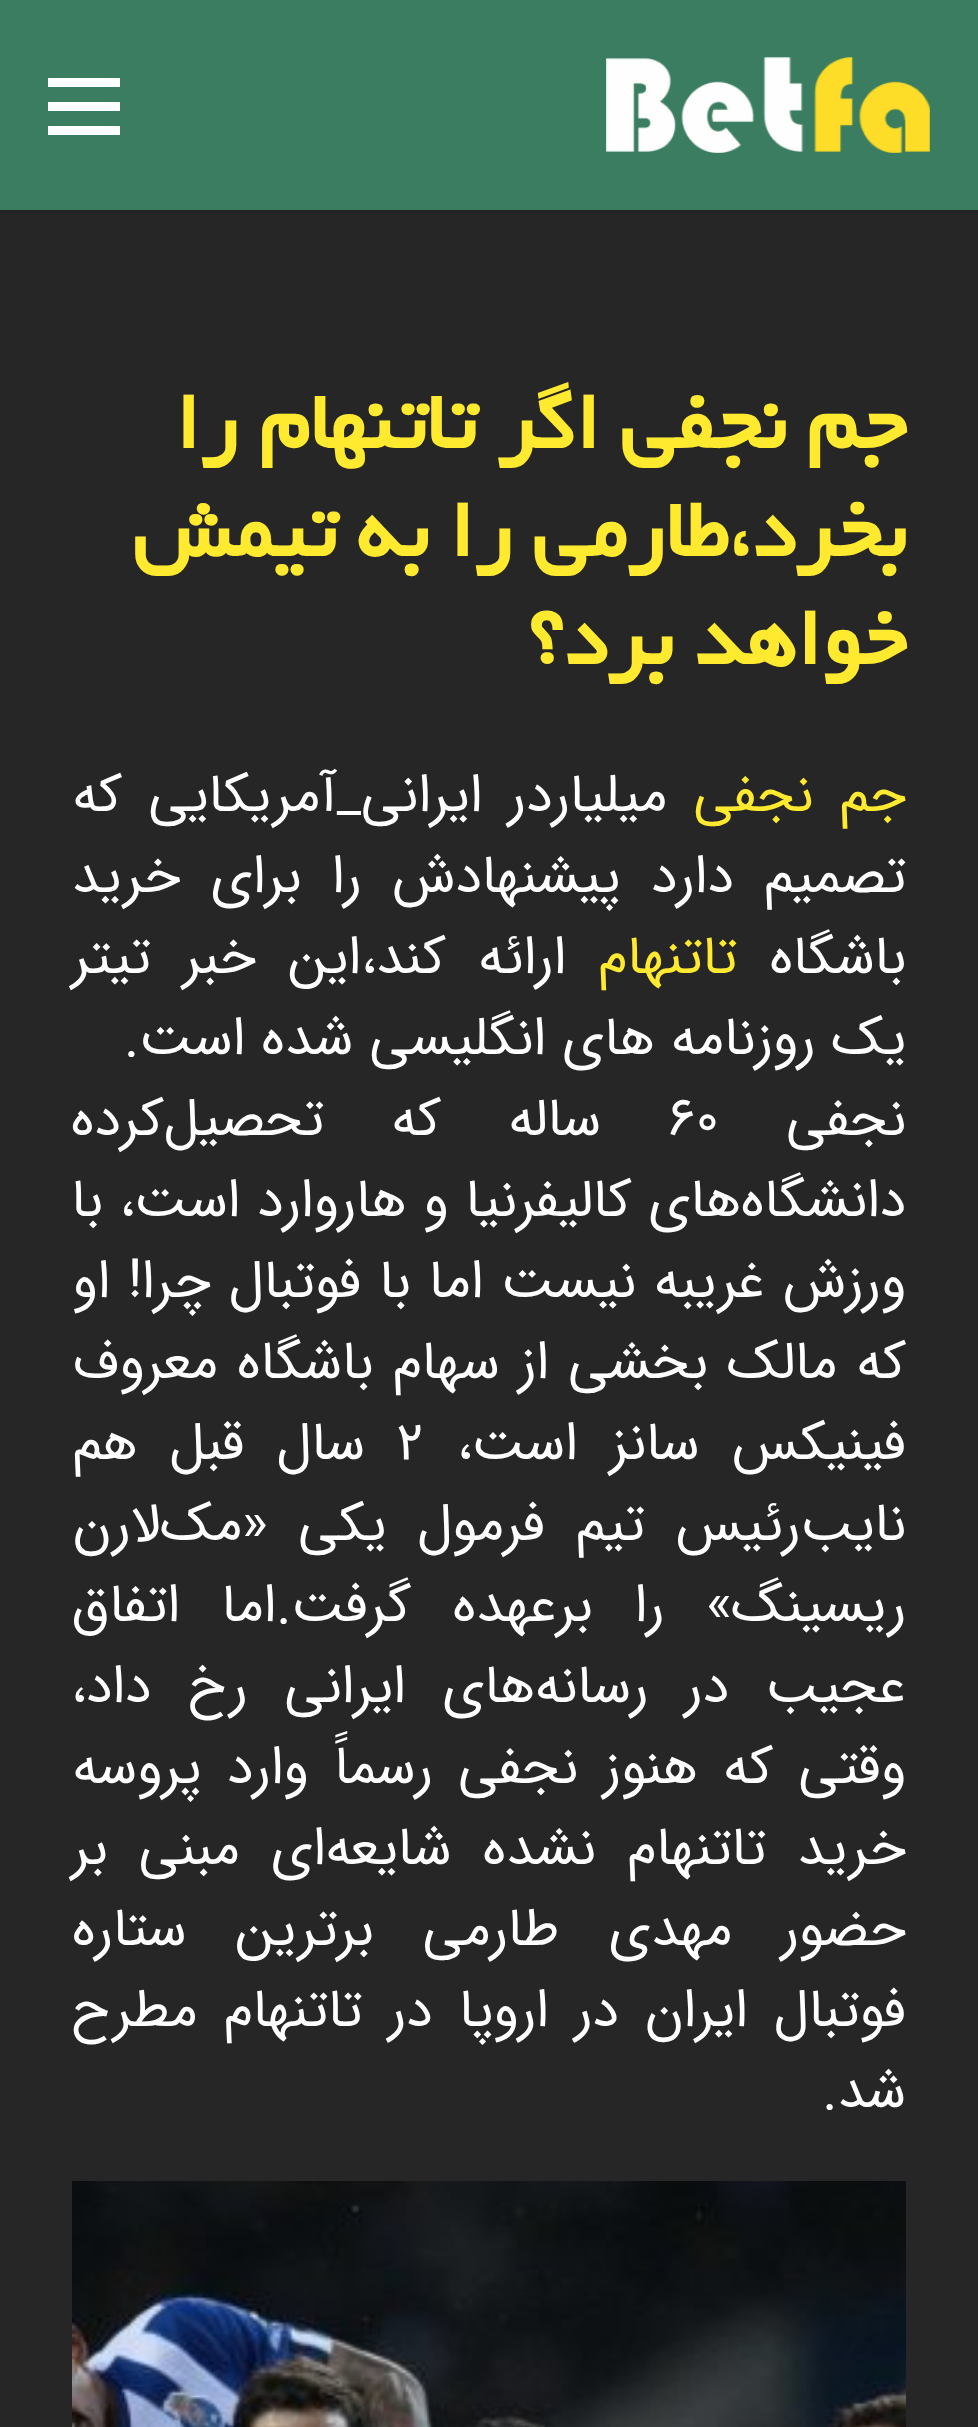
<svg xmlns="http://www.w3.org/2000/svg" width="978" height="2427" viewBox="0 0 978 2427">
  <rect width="100%" height="100%" fill="#262626"/>
  <rect x="0" y="210" width="978" height="3" fill="#232323"/>
  <rect x="0" y="0" width="978" height="210" fill="#3a7d60"/>
  <image x="606" y="57" width="324" height="96" href="img1.png"/>
  <rect x="48" y="102" width="72" height="9" fill="#ffffff"/>
  <rect x="48" y="78" width="72" height="9" fill="#ffffff"/>
  <rect x="48" y="126" width="72" height="9" fill="#ffffff"/>
  <text x="906" y="448" font-family="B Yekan" font-size="90" font-weight="bold" direction="rtl" fill="#ffea30">جم نجفی اگر تاتنهام را</text>
  <text x="906" y="556" font-family="B Yekan" font-size="90" font-weight="bold" direction="rtl" fill="#ffea30">بخرد،طارمی را به تیمش</text>
  <text x="906" y="664" font-family="B Yekan" font-size="90" font-weight="bold" direction="rtl" fill="#ffea30">خواهد برد؟</text>
  <text x="906" y="811" word-spacing="10" font-family="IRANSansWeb" font-size="54" direction="rtl" fill="#ffea30">جم نجفی</text>
  <text x="667" y="811" word-spacing="10" font-family="IRANSansWeb" font-size="54" direction="rtl" fill="#ffffff">میلیاردر ایرانی_آمریکایی که</text>
  <text x="906" y="892" word-spacing="14" font-family="IRANSansWeb" font-size="54" direction="rtl" fill="#ffffff">تصمیم دارد پیشنهادش را برای خرید</text>
  <text x="906" y="973" font-family="IRANSansWeb" font-size="54" direction="rtl" fill="#ffffff">باشگاه</text>
  <text x="737" y="973" font-family="IRANSansWeb" font-size="54" direction="rtl" fill="#ffea30">تاتنهام</text>
  <text x="566" y="973" word-spacing="16" font-family="IRANSansWeb" font-size="54" direction="rtl" fill="#ffffff">ارائه کند،این خبر تیتر</text>
  <text x="906" y="1054" font-family="IRANSansWeb" font-size="54" direction="rtl" fill="#ffffff">یک روزنامه های انگلیسی شده است.</text>
  <text x="906" y="1135" font-family="IRANSansWeb" font-size="54" direction="rtl" fill="#ffffff">نجفی</text>
  <text x="668" y="1135" font-family="IRANSansWeb" font-size="54" fill="#ffffff">۶۰</text>
  <text x="601" y="1135" word-spacing="51" font-family="IRANSansWeb" font-size="54" direction="rtl" fill="#ffffff">ساله که تحصیل‌کرده</text>
  <text x="906" y="1216" word-spacing="0.5" font-family="IRANSansWeb" font-size="54" direction="rtl" fill="#ffffff">دانشگاه‌های کالیفرنیا و هاروارد است، با</text>
  <text x="906" y="1297" word-spacing="1.75" font-family="IRANSansWeb" font-size="54" direction="rtl" fill="#ffffff">ورزش غریبه نیست اما با فوتبال چرا! او</text>
  <text x="906" y="1378" word-spacing="3" font-family="IRANSansWeb" font-size="54" direction="rtl" fill="#ffffff">که مالک بخشی از سهام باشگاه معروف</text>
  <text x="906" y="1459" word-spacing="16" font-family="IRANSansWeb" font-size="54" direction="rtl" fill="#ffffff">فینیکس سانز است،</text>
  <text x="397" y="1459" font-family="IRANSansWeb" font-size="54" fill="#ffffff">۲</text>
  <text x="365" y="1459" word-spacing="16" font-family="IRANSansWeb" font-size="54" direction="rtl" fill="#ffffff">سال قبل هم</text>
  <text x="906" y="1540" word-spacing="14.5" font-family="IRANSansWeb" font-size="54" direction="rtl" fill="#ffffff">نایب‌رئیس تیم فرمول یکی «مک‌لارن</text>
  <text x="906" y="1621" word-spacing="25.5" font-family="IRANSansWeb" font-size="54" direction="rtl" fill="#ffffff">ریسینگ» را برعهده گرفت.اما اتفاق</text>
  <text x="906" y="1702" word-spacing="20.5" font-family="IRANSansWeb" font-size="54" direction="rtl" fill="#ffffff">عجیب در رسانه‌های ایرانی رخ داد،</text>
  <text x="906" y="1783" word-spacing="9.25" font-family="IRANSansWeb" font-size="54" direction="rtl" fill="#ffffff">وقتی که هنوز نجفی رسماً وارد پروسه</text>
  <text x="906" y="1864" word-spacing="15" font-family="IRANSansWeb" font-size="54" direction="rtl" fill="#ffffff">خرید تاتنهام نشده شایعه‌ای مبنی بر</text>
  <text x="906" y="1945" word-spacing="33" font-family="IRANSansWeb" font-size="54" direction="rtl" fill="#ffffff">حضور مهدی طارمی برترین ستاره</text>
  <text x="906" y="2026" word-spacing="10" font-family="IRANSansWeb" font-size="54" direction="rtl" fill="#ffffff">فوتبال ایران در اروپا در تاتنهام مطرح</text>
  <text x="906" y="2107" font-family="IRANSansWeb" font-size="54" direction="rtl" fill="#ffffff">شد.</text>
  <image x="72" y="2181" width="834" height="246" href="img2.png"/>
</svg>
